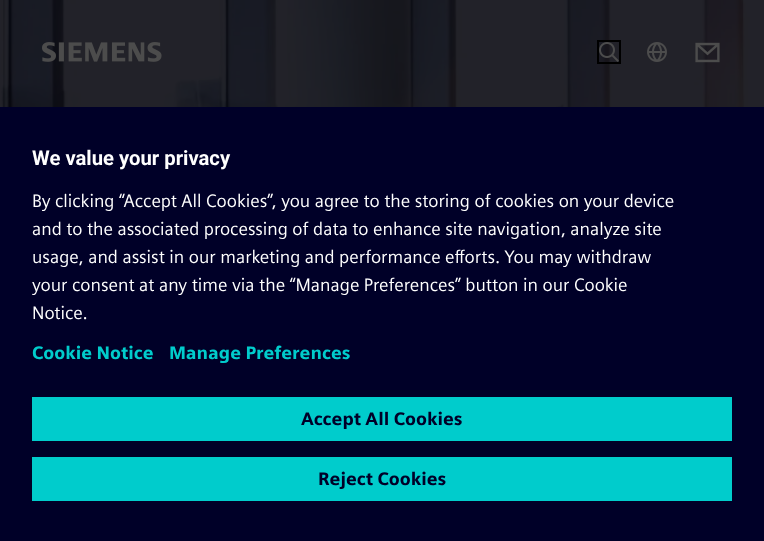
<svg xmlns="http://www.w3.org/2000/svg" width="764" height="541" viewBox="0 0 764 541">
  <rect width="100%" height="100%" fill="#ffffff"/>
  <image x="0" y="0" width="764" height="107" href="img1.png"/>
  <image x="42" y="42" width="120" height="20" href="img2.png"/>
  <image x="599" y="42" width="20" height="20" href="img3.png"/>
  <rect x="598" y="41" width="22" height="22" fill="none" stroke="#000000" stroke-width="2"/>
  <image x="647" y="42" width="20" height="20" href="img4.png"/>
  <image x="695" y="42" width="25" height="21" href="img5.png"/>
  <rect x="0" y="107" width="764" height="434" fill="#000028"/>
  <text x="32" y="165" font-family="Roboto" font-size="20.25" font-weight="bold" fill="#ffffff">We value your privacy</text>
  <text x="32" y="207" font-family="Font" font-size="18" fill="#ffffff">By clicking “Accept All Cookies”, you agree to the storing of cookies on your device</text>
  <text x="32" y="235" font-family="Font" font-size="18" fill="#ffffff">and to the associated processing of data to enhance site navigation, analyze site</text>
  <text x="32" y="263" font-family="Font" font-size="18" fill="#ffffff">usage, and assist in our marketing and performance efforts. You may withdraw</text>
  <text x="32" y="291" font-family="Font" font-size="18" fill="#ffffff">your consent at any time via the “Manage Preferences” button in our Cookie</text>
  <text x="32" y="319" font-family="Font" font-size="18" fill="#ffffff">Notice.</text>
  <text x="32" y="359" font-family="Font" font-size="18" font-weight="bold" fill="#00cccc">Cookie Notice</text>
  <text x="169" y="359" font-family="Font" font-size="18" font-weight="bold" fill="#00cccc">Manage Preferences</text>
  <rect x="32" y="397" width="700" height="44" fill="#00cccc"/>
  <text x="301" y="425" font-family="Font" font-size="18" font-weight="bold" fill="#000028">Accept All Cookies</text>
  <rect x="32" y="457" width="700" height="44" fill="#00cccc"/>
  <text x="318" y="485" font-family="Font" font-size="18" font-weight="bold" fill="#000028">Reject Cookies</text>
</svg>
